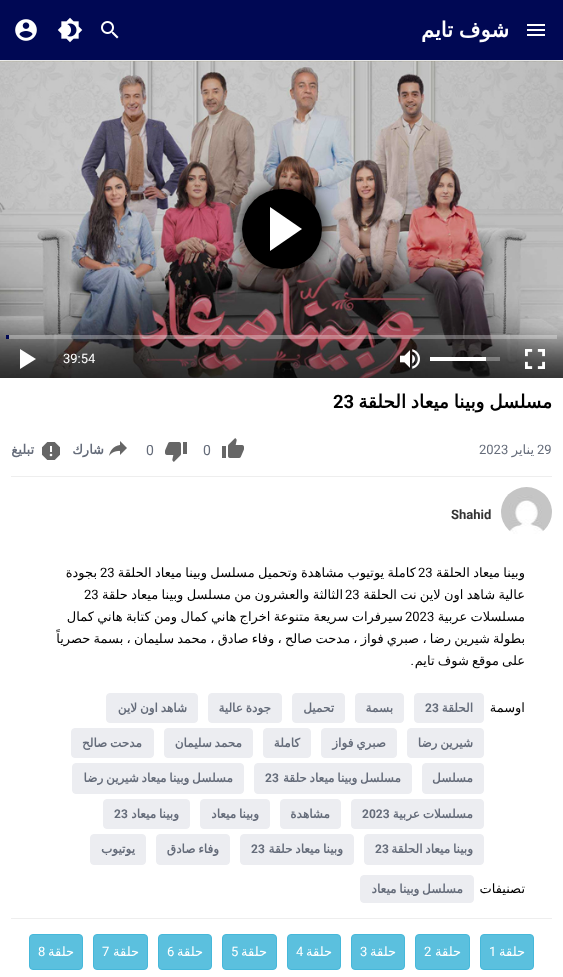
<svg xmlns="http://www.w3.org/2000/svg" width="563" height="977" viewBox="0 0 563 977">
  <defs>
    <filter id="blur1" x="-50%" y="-200%" width="200%" height="500%"><feGaussianBlur stdDeviation="2.5"/></filter>
    <filter id="blur2" x="-50%" y="-200%" width="200%" height="500%"><feGaussianBlur stdDeviation="10"/></filter>
  </defs>
  <rect width="100%" height="100%" fill="#ffffff"/>
  <rect x="0" y="60" width="563" height="1" fill="#eeeeee"/>
  <image x="0" y="61" width="563" height="317" href="img5.png"/>
  <rect x="5" y="7" width="553" height="50" fill="#999999" filter="url(#blur1)"/>
  <rect x="0" y="0" width="563" height="60" fill="#000854"/>
  <image x="527" y="24" width="18" height="12" href="img1.png"/>
  <text x="509" y="37" word-spacing="-1" font-family="DejaVu Sans" font-size="21" font-weight="bold" direction="rtl" fill="#ffffff">شوف تايم</text>
  <image x="101" y="21" width="18" height="18" href="img2.png"/>
  <image x="57" y="17" width="26" height="26" href="img3.png"/>
  <image x="15" y="19" width="22" height="22" href="img4.png"/>
  <rect x="242" y="189" width="80" height="80" rx="40" fill="#000000" filter="url(#blur2)"/>
  <circle cx="282" cy="229" r="40" fill="#000000"/>
  <path d="M270 251V207L302 229Z" fill="#ffffff"/>
  <rect x="6" y="335" width="551" height="4" fill="#ffffff" fill-opacity="0.3"/>
  <rect x="6" y="335" width="3" height="4" fill="#000854"/>
  <image x="525" y="349" width="20" height="20" href="img6.png"/>
  <rect x="486" y="357" width="14" height="4" fill="#ffffff" fill-opacity="0.3"/>
  <rect x="430" y="357" width="56" height="4" fill="#ffffff"/>
  <image x="400" y="349" width="20" height="20" href="img7.png"/>
  <text x="63" y="363" font-family="Roboto" font-size="13" fill="#ffffff">39:54</text>
  <path d="M20 349V369L36 359Z" fill="#ffffff"/>
  <text x="552" y="408" word-spacing="-1" font-family="DejaVu Sans" font-size="18.4" font-weight="bold" direction="rtl" fill="#000000">مسلسل وبينا ميعاد الحلقة</text>
  <text x="333" y="408" font-family="Roboto" font-size="18.4" font-weight="bold" fill="#000000">23</text>
  <rect x="11" y="476" width="541" height="1" fill="#eeeeee"/>
  <text x="537" y="454" font-family="Roboto" font-size="13" fill="#656c7a">29</text>
  <text x="534" y="454" font-family="DejaVu Sans" font-size="13" direction="rtl" fill="#656c7a">يناير</text>
  <text x="479" y="454" font-family="Roboto" font-size="13" fill="#656c7a">2023</text>
  <image x="222" y="438" width="22" height="20" href="img8.png"/>
  <text x="203" y="455" font-family="Roboto" font-size="14" fill="#656c7a">0</text>
  <image x="165" y="442" width="22" height="20" href="img9.png"/>
  <text x="146" y="455" font-family="Roboto" font-size="14" fill="#656c7a">0</text>
  <image x="109" y="441" width="18" height="15" href="img10.png"/>
  <text x="104" y="454" font-family="DejaVu Sans" font-size="13" font-weight="bold" direction="rtl" fill="#656c7a">شارك</text>
  <image x="42" y="442" width="18" height="18" href="img11.png"/>
  <text x="34" y="454" font-family="DejaVu Sans" font-size="13" font-weight="bold" direction="rtl" fill="#656c7a">تبليغ</text>
  <image x="501" y="487" width="51" height="47" href="img12.png"/>
  <text x="451" y="519" font-family="Roboto" font-size="13" font-weight="bold" fill="#333333">Shahid</text>
  <text x="525" y="577" word-spacing="-0.9" font-family="DejaVu Sans" font-size="13" direction="rtl" fill="#000000">وبينا ميعاد الحلقة</text>
  <text x="418" y="577" font-family="Roboto" font-size="13" fill="#000000">23</text>
  <text x="416" y="577" word-spacing="-0.75" font-family="DejaVu Sans" font-size="13" direction="rtl" fill="#000000">كاملة يوتيوب مشاهدة وتحميل مسلسل وبينا ميعاد الحلقة</text>
  <text x="100" y="577" font-family="Roboto" font-size="13" fill="#000000">23</text>
  <text x="97" y="577" font-family="DejaVu Sans" font-size="13" direction="rtl" fill="#000000">بجودة</text>
  <text x="525" y="599" word-spacing="-0.9" font-family="DejaVu Sans" font-size="13" direction="rtl" fill="#000000">عالية شاهد اون لاين نت الحلقة</text>
  <text x="345" y="599" font-family="Roboto" font-size="13" fill="#000000">23</text>
  <text x="343" y="599" word-spacing="-0.75" font-family="DejaVu Sans" font-size="13" direction="rtl" fill="#000000">الثالثة والعشرون من مسلسل وبينا ميعاد حلقة</text>
  <text x="84" y="599" font-family="Roboto" font-size="13" fill="#000000">23</text>
  <text x="525" y="621" word-spacing="-0.9" font-family="DejaVu Sans" font-size="13" direction="rtl" fill="#000000">مسلسلات عربية</text>
  <text x="405" y="621" font-family="Roboto" font-size="13" fill="#000000">2023</text>
  <text x="403" y="621" word-spacing="-0.75" font-family="DejaVu Sans" font-size="13" direction="rtl" fill="#000000">سيرفرات سريعة متنوعة اخراج هاني كمال ومن كتابة هاني كمال</text>
  <text x="525" y="643" word-spacing="-0.9" font-family="DejaVu Sans" font-size="13" direction="rtl" fill="#000000">بطولة شيرين رضا ، صبري فواز ، مدحت صالح ، وفاء صادق ، محمد سليمان ، بسمة حصرياً</text>
  <text x="525" y="665" word-spacing="-0.9" font-family="DejaVu Sans" font-size="13" direction="rtl" fill="#000000">على موقع شوف تايم</text>
  <text x="414" y="665" font-family="Roboto" font-size="13" direction="rtl" fill="#000000">.</text>
  <text x="525" y="712" font-family="DejaVu Sans" font-size="13" direction="rtl" fill="#000000">اوسمة</text>
  <rect x="414.5" y="693.5" width="69" height="29" rx="3.5" fill="#ecedf1" stroke="#ecedf1"/>
  <text x="473" y="712" font-family="DejaVu Sans" font-size="12" font-weight="bold" direction="rtl" fill="#656c7a">الحلقة</text>
  <text x="425" y="712" font-family="Roboto" font-size="12" font-weight="bold" fill="#656c7a">23</text>
  <rect x="355.5" y="693.5" width="48" height="29" rx="3.5" fill="#ecedf1" stroke="#ecedf1"/>
  <text x="393" y="712" font-family="DejaVu Sans" font-size="12" font-weight="bold" direction="rtl" fill="#656c7a">بسمة</text>
  <rect x="292.5" y="693.5" width="52" height="29" rx="3.5" fill="#ecedf1" stroke="#ecedf1"/>
  <text x="334" y="712" font-family="DejaVu Sans" font-size="12" font-weight="bold" direction="rtl" fill="#656c7a">تحميل</text>
  <rect x="208.5" y="693.5" width="73" height="29" rx="3.5" fill="#ecedf1" stroke="#ecedf1"/>
  <text x="271" y="712" word-spacing="-1" font-family="DejaVu Sans" font-size="12" font-weight="bold" direction="rtl" fill="#656c7a">جودة عالية</text>
  <rect x="106.5" y="693.5" width="91" height="29" rx="3.5" fill="#ecedf1" stroke="#ecedf1"/>
  <text x="187" y="712" word-spacing="-1" font-family="DejaVu Sans" font-size="12" font-weight="bold" direction="rtl" fill="#656c7a">شاهد اون لاين</text>
  <rect x="407.5" y="728.5" width="76" height="29" rx="3.5" fill="#ecedf1" stroke="#ecedf1"/>
  <text x="473" y="747" word-spacing="-1" font-family="DejaVu Sans" font-size="12" font-weight="bold" direction="rtl" fill="#656c7a">شيرين رضا</text>
  <rect x="321.5" y="728.5" width="75" height="29" rx="3.5" fill="#ecedf1" stroke="#ecedf1"/>
  <text x="386" y="747" word-spacing="-1" font-family="DejaVu Sans" font-size="12" font-weight="bold" direction="rtl" fill="#656c7a">صبري فواز</text>
  <rect x="263.5" y="728.5" width="47" height="29" rx="3.5" fill="#ecedf1" stroke="#ecedf1"/>
  <text x="300" y="747" font-family="DejaVu Sans" font-size="12" font-weight="bold" direction="rtl" fill="#656c7a">كاملة</text>
  <rect x="164.5" y="728.5" width="88" height="29" rx="3.5" fill="#ecedf1" stroke="#ecedf1"/>
  <text x="242" y="747" word-spacing="-1" font-family="DejaVu Sans" font-size="12" font-weight="bold" direction="rtl" fill="#656c7a">محمد سليمان</text>
  <rect x="71.5" y="728.5" width="82" height="29" rx="3.5" fill="#ecedf1" stroke="#ecedf1"/>
  <text x="142" y="747" word-spacing="-1" font-family="DejaVu Sans" font-size="12" font-weight="bold" direction="rtl" fill="#656c7a">مدحت صالح</text>
  <rect x="422.5" y="763.5" width="61" height="30" rx="3.5" fill="#ecedf1" stroke="#ecedf1"/>
  <text x="473" y="782" font-family="DejaVu Sans" font-size="12" font-weight="bold" direction="rtl" fill="#656c7a">مسلسل</text>
  <rect x="254.5" y="763.5" width="157" height="30" rx="3.5" fill="#ecedf1" stroke="#ecedf1"/>
  <text x="401" y="782" word-spacing="-1" font-family="DejaVu Sans" font-size="12" font-weight="bold" direction="rtl" fill="#656c7a">مسلسل وبينا ميعاد حلقة</text>
  <text x="265" y="782" font-family="Roboto" font-size="12" font-weight="bold" fill="#656c7a">23</text>
  <rect x="72.5" y="763.5" width="171" height="30" rx="3.5" fill="#ecedf1" stroke="#ecedf1"/>
  <text x="233" y="782" word-spacing="-1" font-family="DejaVu Sans" font-size="12" font-weight="bold" direction="rtl" fill="#656c7a">مسلسل وبينا ميعاد شيرين رضا</text>
  <rect x="351.5" y="799.5" width="132" height="29" rx="3.5" fill="#ecedf1" stroke="#ecedf1"/>
  <text x="473" y="818" word-spacing="-1" font-family="DejaVu Sans" font-size="12" font-weight="bold" direction="rtl" fill="#656c7a">مسلسلات عربية</text>
  <text x="362" y="818" font-family="Roboto" font-size="12" font-weight="bold" fill="#656c7a">2023</text>
  <rect x="280.5" y="799.5" width="60" height="29" rx="3.5" fill="#ecedf1" stroke="#ecedf1"/>
  <text x="330" y="818" font-family="DejaVu Sans" font-size="12" font-weight="bold" direction="rtl" fill="#656c7a">مشاهدة</text>
  <rect x="200.5" y="799.5" width="69" height="29" rx="3.5" fill="#ecedf1" stroke="#ecedf1"/>
  <text x="259" y="818" word-spacing="-1" font-family="DejaVu Sans" font-size="12" font-weight="bold" direction="rtl" fill="#656c7a">وبينا ميعاد</text>
  <rect x="103.5" y="799.5" width="86" height="29" rx="3.5" fill="#ecedf1" stroke="#ecedf1"/>
  <text x="179" y="818" word-spacing="-1" font-family="DejaVu Sans" font-size="12" font-weight="bold" direction="rtl" fill="#656c7a">وبينا ميعاد</text>
  <text x="114" y="818" font-family="Roboto" font-size="12" font-weight="bold" fill="#656c7a">23</text>
  <rect x="364.5" y="834.5" width="119" height="30" rx="3.5" fill="#ecedf1" stroke="#ecedf1"/>
  <text x="473" y="853" word-spacing="-1" font-family="DejaVu Sans" font-size="12" font-weight="bold" direction="rtl" fill="#656c7a">وبينا ميعاد الحلقة</text>
  <text x="375" y="853" font-family="Roboto" font-size="12" font-weight="bold" fill="#656c7a">23</text>
  <rect x="240.5" y="834.5" width="113" height="30" rx="3.5" fill="#ecedf1" stroke="#ecedf1"/>
  <text x="343" y="853" word-spacing="-1" font-family="DejaVu Sans" font-size="12" font-weight="bold" direction="rtl" fill="#656c7a">وبينا ميعاد حلقة</text>
  <text x="251" y="853" font-family="Roboto" font-size="12" font-weight="bold" fill="#656c7a">23</text>
  <rect x="156.5" y="834.5" width="73" height="30" rx="3.5" fill="#ecedf1" stroke="#ecedf1"/>
  <text x="219" y="853" word-spacing="-1" font-family="DejaVu Sans" font-size="12" font-weight="bold" direction="rtl" fill="#656c7a">وفاء صادق</text>
  <rect x="90.5" y="834.5" width="55" height="30" rx="3.5" fill="#ecedf1" stroke="#ecedf1"/>
  <text x="135" y="853" font-family="DejaVu Sans" font-size="12" font-weight="bold" direction="rtl" fill="#656c7a">يوتيوب</text>
  <text x="525" y="893" font-family="DejaVu Sans" font-size="13" direction="rtl" fill="#000000">تصنيفات</text>
  <rect x="360.5" y="875.5" width="113" height="27" rx="3.5" fill="#ecedf1" stroke="#ecedf1"/>
  <text x="463" y="893" word-spacing="-1" font-family="DejaVu Sans" font-size="12" font-weight="bold" direction="rtl" fill="#656c7a">مسلسل وبينا ميعاد</text>
  <rect x="11" y="918" width="541" height="1" fill="#eeeeee"/>
  <rect x="480.5" y="934.5" width="53" height="35" rx="3.5" fill="#5bc0de" stroke="#46b8da"/>
  <text x="525" y="956" font-family="DejaVu Sans" font-size="13" direction="rtl" fill="#ffffff">حلقة</text>
  <text x="489" y="956" font-family="Roboto" font-size="13" fill="#ffffff">1</text>
  <rect x="415.5" y="934.5" width="54" height="35" rx="3.5" fill="#5bc0de" stroke="#46b8da"/>
  <text x="461" y="956" font-family="DejaVu Sans" font-size="13" direction="rtl" fill="#ffffff">حلقة</text>
  <text x="424" y="956" font-family="Roboto" font-size="13" fill="#ffffff">2</text>
  <rect x="351.5" y="934.5" width="53" height="35" rx="3.5" fill="#5bc0de" stroke="#46b8da"/>
  <text x="396" y="956" font-family="DejaVu Sans" font-size="13" direction="rtl" fill="#ffffff">حلقة</text>
  <text x="360" y="956" font-family="Roboto" font-size="13" fill="#ffffff">3</text>
  <rect x="287.5" y="934.5" width="53" height="35" rx="3.5" fill="#5bc0de" stroke="#46b8da"/>
  <text x="332" y="956" font-family="DejaVu Sans" font-size="13" direction="rtl" fill="#ffffff">حلقة</text>
  <text x="296" y="956" font-family="Roboto" font-size="13" fill="#ffffff">4</text>
  <rect x="222.5" y="934.5" width="54" height="35" rx="3.5" fill="#5bc0de" stroke="#46b8da"/>
  <text x="267" y="956" font-family="DejaVu Sans" font-size="13" direction="rtl" fill="#ffffff">حلقة</text>
  <text x="231" y="956" font-family="Roboto" font-size="13" fill="#ffffff">5</text>
  <rect x="158.5" y="934.5" width="53" height="35" rx="3.5" fill="#5bc0de" stroke="#46b8da"/>
  <text x="203" y="956" font-family="DejaVu Sans" font-size="13" direction="rtl" fill="#ffffff">حلقة</text>
  <text x="167" y="956" font-family="Roboto" font-size="13" fill="#ffffff">6</text>
  <rect x="93.5" y="934.5" width="54" height="35" rx="3.5" fill="#5bc0de" stroke="#46b8da"/>
  <text x="139" y="956" font-family="DejaVu Sans" font-size="13" direction="rtl" fill="#ffffff">حلقة</text>
  <text x="102" y="956" font-family="Roboto" font-size="13" fill="#ffffff">7</text>
  <rect x="29.5" y="934.5" width="53" height="35" rx="3.5" fill="#5bc0de" stroke="#46b8da"/>
  <text x="74" y="956" font-family="DejaVu Sans" font-size="13" direction="rtl" fill="#ffffff">حلقة</text>
  <text x="38" y="956" font-family="Roboto" font-size="13" fill="#ffffff">8</text>
</svg>
